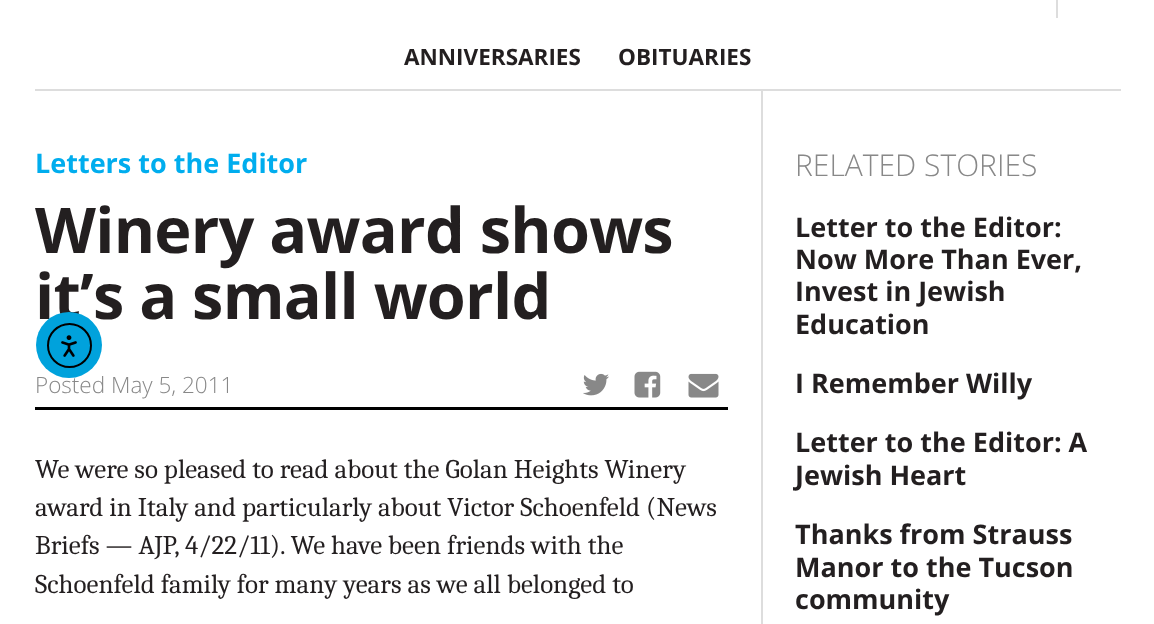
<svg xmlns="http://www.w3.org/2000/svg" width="1154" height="624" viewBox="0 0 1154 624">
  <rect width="100%" height="100%" fill="#ffffff"/>
  <rect x="761" y="90" width="2" height="534" fill="#dddddd"/>
  <rect x="35" y="89" width="1086" height="2" fill="#dddddd"/>
  <rect x="1056" y="0" width="2" height="18" fill="#dddddd"/>
  <text x="404" y="65" font-family="Open Sans" font-size="22.5" font-weight="bold" fill="#231f20">ANNIVERSARIES</text>
  <text x="618" y="65" font-family="Open Sans" font-size="22.5" font-weight="bold" fill="#231f20">OBITUARIES</text>
  <text x="35" y="173" font-family="Open Sans" font-size="27" font-weight="bold" fill="#00adee">Letters to the Editor</text>
  <text x="35" y="253" font-family="Open Sans" font-size="63" font-weight="bold" letter-spacing="-0.75" fill="#231f20">Winery award shows</text>
  <text x="35" y="319" font-family="Open Sans" font-size="63" font-weight="bold" letter-spacing="-0.75" fill="#231f20">it’s a small world</text>
  <rect x="35" y="407" width="693" height="3" fill="#000000"/>
  <text x="35" y="393" font-family="Open Sans" font-size="22.5" font-weight="300" fill="#888888">Posted May 5, 2011</text>
  <image x="583" y="373" width="26" height="23" href="img1.png"/>
  <image x="634" y="371" width="27" height="27" href="img2.png"/>
  <image x="688" y="373" width="31" height="25" href="img3.png"/>
  <text x="35" y="478" font-family="Caladea" font-size="27" fill="#231f20">We were so pleased to read about the Golan Heights Winery</text>
  <text x="35" y="516" font-family="Caladea" font-size="27" fill="#231f20">award in Italy and particularly about Victor Schoenfeld (News</text>
  <text x="35" y="554" font-family="Caladea" font-size="27" fill="#231f20">Briefs — AJP, 4/22/11). We have been friends with the</text>
  <text x="35" y="593" font-family="Caladea" font-size="27" fill="#231f20">Schoenfeld family for many years as we all belonged to</text>
  <text x="795" y="176" font-family="Open Sans" font-size="30" font-weight="300" fill="#888888">RELATED STORIES</text>
  <text x="795" y="237" font-family="Open Sans" font-size="27" font-weight="bold" fill="#231f20">Letter to the Editor:</text>
  <text x="795" y="269" font-family="Open Sans" font-size="27" font-weight="bold" fill="#231f20">Now More Than Ever,</text>
  <text x="795" y="301" font-family="Open Sans" font-size="27" font-weight="bold" fill="#231f20">Invest in Jewish</text>
  <text x="795" y="334" font-family="Open Sans" font-size="27" font-weight="bold" fill="#231f20">Education</text>
  <text x="795" y="393" font-family="Open Sans" font-size="27" font-weight="bold" fill="#231f20">I Remember Willy</text>
  <text x="795" y="452" font-family="Open Sans" font-size="27" font-weight="bold" fill="#231f20">Letter to the Editor: A</text>
  <text x="795" y="485" font-family="Open Sans" font-size="27" font-weight="bold" fill="#231f20">Jewish Heart</text>
  <text x="795" y="544" font-family="Open Sans" font-size="27" font-weight="bold" fill="#231f20">Thanks from Strauss</text>
  <text x="795" y="577" font-family="Open Sans" font-size="27" font-weight="bold" fill="#231f20">Manor to the Tucson</text>
  <text x="795" y="609" font-family="Open Sans" font-size="27" font-weight="bold" fill="#231f20">community</text>
  <circle cx="69" cy="345" r="33" fill="#00a2dc"/>
  <circle cx="69.5" cy="345.5" r="21.5" fill="none" stroke="#000000" stroke-width="2"/>
  <image x="61" y="335" width="16" height="22" href="img4.png"/>
</svg>
